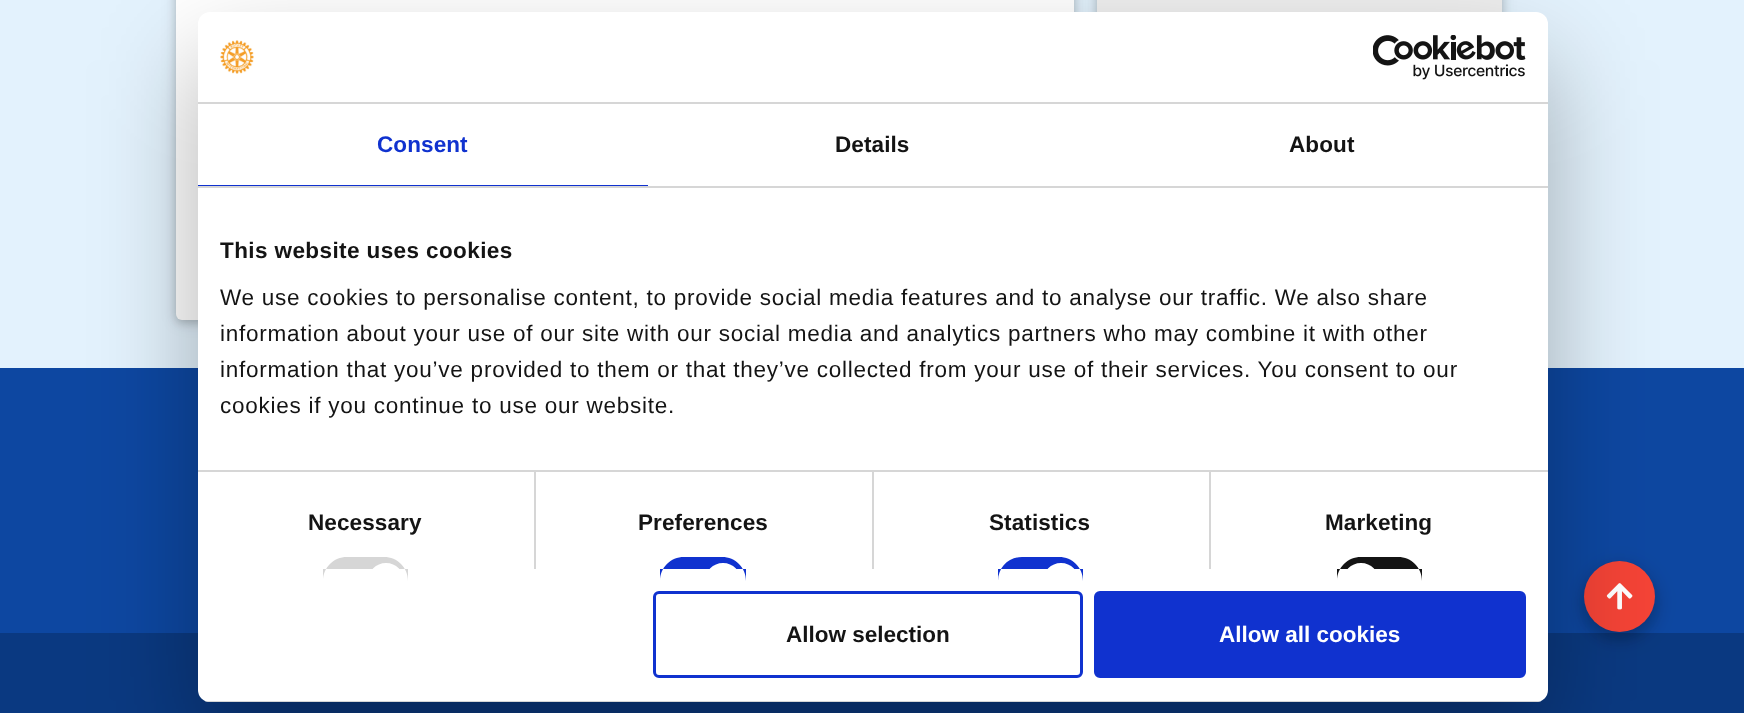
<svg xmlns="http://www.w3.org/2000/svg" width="1744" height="713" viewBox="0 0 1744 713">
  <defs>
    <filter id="blur1" x="-50%" y="-200%" width="200%" height="500%"><feGaussianBlur stdDeviation="7.5"/></filter>
    <filter id="blur2" x="-50%" y="-200%" width="200%" height="500%"><feGaussianBlur stdDeviation="4"/></filter>
    <filter id="blur3" x="-50%" y="-200%" width="200%" height="500%"><feGaussianBlur stdDeviation="11"/></filter>
    <filter id="blur4" x="-50%" y="-200%" width="200%" height="500%"><feGaussianBlur stdDeviation="8"/></filter>
    <filter id="blur5" x="-50%" y="-200%" width="200%" height="500%"><feGaussianBlur stdDeviation="51"/></filter>
    <clipPath id="clip1"><rect x="198" y="12" width="1350" height="690" rx="12"/></clipPath>
  </defs>
  <rect width="100%" height="100%" fill="#e3f2fd"/>
  <rect x="176" y="-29" width="898" height="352" rx="6" fill="#000000" fill-opacity="0.12" filter="url(#blur1)"/>
  <rect x="176" y="-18" width="898" height="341" rx="6" fill="#000000" fill-opacity="0.16" filter="url(#blur2)"/>
  <rect x="176" y="-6" width="898" height="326" rx="6" fill="#ffffff"/>
  <rect x="1097" y="-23" width="405" height="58" fill="#000000" fill-opacity="0.12" filter="url(#blur1)"/>
  <rect x="1097" y="-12" width="405" height="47" fill="#000000" fill-opacity="0.16" filter="url(#blur2)"/>
  <rect x="1097" y="0" width="405" height="12" fill="#eeeeee"/>
  <rect x="0" y="368" width="1744" height="265" fill="#0d47a1"/>
  <rect x="0" y="633" width="1744" height="80" fill="#0a3981"/>
  <rect x="1584" y="567" width="71" height="71" rx="35.5" fill="#000000" fill-opacity="0.15" filter="url(#blur3)"/>
  <rect x="1584" y="569" width="71" height="70" rx="35" fill="#000000" fill-opacity="0.18" filter="url(#blur4)"/>
  <circle cx="1619.5" cy="596.5" r="35.5" fill="#f44336"/>
  <image x="1606" y="583" width="27" height="27" href="img3.png"/>
  <rect x="198" y="60" width="1350" height="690" rx="12" fill="#000000" fill-opacity="0.3" filter="url(#blur5)"/>
  <rect x="198" y="12" width="1350" height="690" rx="12" fill="#ffffff"/>
  <rect x="198" y="102" width="1350" height="2" fill="#d6d6d6"/>
  <image x="220" y="40" width="34" height="34" href="img1.png"/>
  <image x="1373" y="35" width="153" height="45" href="img2.png"/>
  <rect x="198" y="186" width="1350" height="2" fill="#d6d6d6"/>
  <rect x="198" y="185" width="450" height="1" fill="#1032cf"/>
  <text x="377" y="152" font-family="Liberation Sans" font-size="22.5" font-weight="bold" letter-spacing="0.1" fill="#1032cf">Consent</text>
  <text x="835" y="152" font-family="Liberation Sans" font-size="22.5" font-weight="bold" letter-spacing="0.1" fill="#141414">Details</text>
  <text x="1289" y="152" font-family="Liberation Sans" font-size="22.5" font-weight="bold" letter-spacing="0.1" fill="#141414">About</text>
  <rect x="534" y="471" width="2" height="98" fill="#d6d6d6"/>
  <rect x="872" y="471" width="2" height="98" fill="#d6d6d6"/>
  <rect x="1209" y="471" width="2" height="98" fill="#d6d6d6"/>
  <rect x="198" y="470" width="1350" height="2" fill="#d6d6d6"/>
  <text x="220" y="258" font-family="Liberation Sans" font-size="22.5" font-weight="bold" letter-spacing="0.4" fill="#141414">This website uses cookies</text>
  <text x="220" y="305" font-family="Liberation Sans" font-size="22.5" letter-spacing="0.75" fill="#141414">We use cookies to personalise content, to provide social media features and to analyse our traffic. We also share</text>
  <text x="220" y="341" font-family="Liberation Sans" font-size="22.5" letter-spacing="0.75" fill="#141414">information about your use of our site with our social media and analytics partners who may combine it with other</text>
  <text x="220" y="377" font-family="Liberation Sans" font-size="22.5" letter-spacing="0.75" fill="#141414">information that you’ve provided to them or that they’ve collected from your use of their services. You consent to our</text>
  <text x="220" y="413" font-family="Liberation Sans" font-size="22.5" letter-spacing="0.75" fill="#141414">cookies if you continue to use our website.</text>
  <text x="308" y="530" font-family="Liberation Sans" font-size="22.5" font-weight="bold" letter-spacing="0.1" fill="#141414">Necessary</text>
  <path d="M347 557H384C397.5 557 408 567.5 408 581V569H323V581C323 567.5 333.5 557 347 557Z" fill="#d6d6d6"/>
  <path d="M386 563C396 563 404 571 404 581V569H368V581C368 571 376 563 386 563Z" fill="#ffffff"/>
  <text x="638" y="530" font-family="Liberation Sans" font-size="22.5" font-weight="bold" letter-spacing="0.1" fill="#141414">Preferences</text>
  <path d="M684 557H722C735.5 557 746 567.5 746 581V569H660V581C660 567.5 670.5 557 684 557Z" fill="#1032cf"/>
  <path d="M723 563C733 563 741 571 741 581V569H705V581C705 571 713 563 723 563Z" fill="#ffffff"/>
  <text x="989" y="530" font-family="Liberation Sans" font-size="22.5" font-weight="bold" letter-spacing="0.1" fill="#141414">Statistics</text>
  <path d="M1022 557H1059C1072.5 557 1083 567.5 1083 581V569H998V581C998 567.5 1008.5 557 1022 557Z" fill="#1032cf"/>
  <path d="M1061 563C1071 563 1079 571 1079 581V569H1043V581C1043 571 1051 563 1061 563Z" fill="#ffffff"/>
  <text x="1325" y="530" font-family="Liberation Sans" font-size="22.5" font-weight="bold" letter-spacing="0.1" fill="#141414">Marketing</text>
  <path d="M1361 557H1398C1411.5 557 1422 567.5 1422 581V569H1337V581C1337 567.5 1347.5 557 1361 557Z" fill="#141414"/>
  <path d="M1361 563C1371 563 1379 571 1379 581V569H1343V581C1343 571 1351 563 1361 563Z" fill="#ffffff"/>
  <g clip-path="url(#clip1)">
    <rect x="198" y="701" width="1350" height="1" fill="#d6d6d6"/>
  </g>
  <rect x="654.5" y="592.5" width="427" height="84" rx="4.5" fill="none" stroke="#1032cf" stroke-width="3"/>
  <text x="786" y="642" font-family="Liberation Sans" font-size="22.5" font-weight="bold" fill="#141414">Allow selection</text>
  <rect x="1095.5" y="592.5" width="429" height="84" rx="4.5" fill="#1032cf" stroke="#1032cf" stroke-width="3"/>
  <text x="1219" y="642" font-family="Liberation Sans" font-size="22.5" font-weight="bold" fill="#ffffff">Allow all cookies</text>
</svg>
